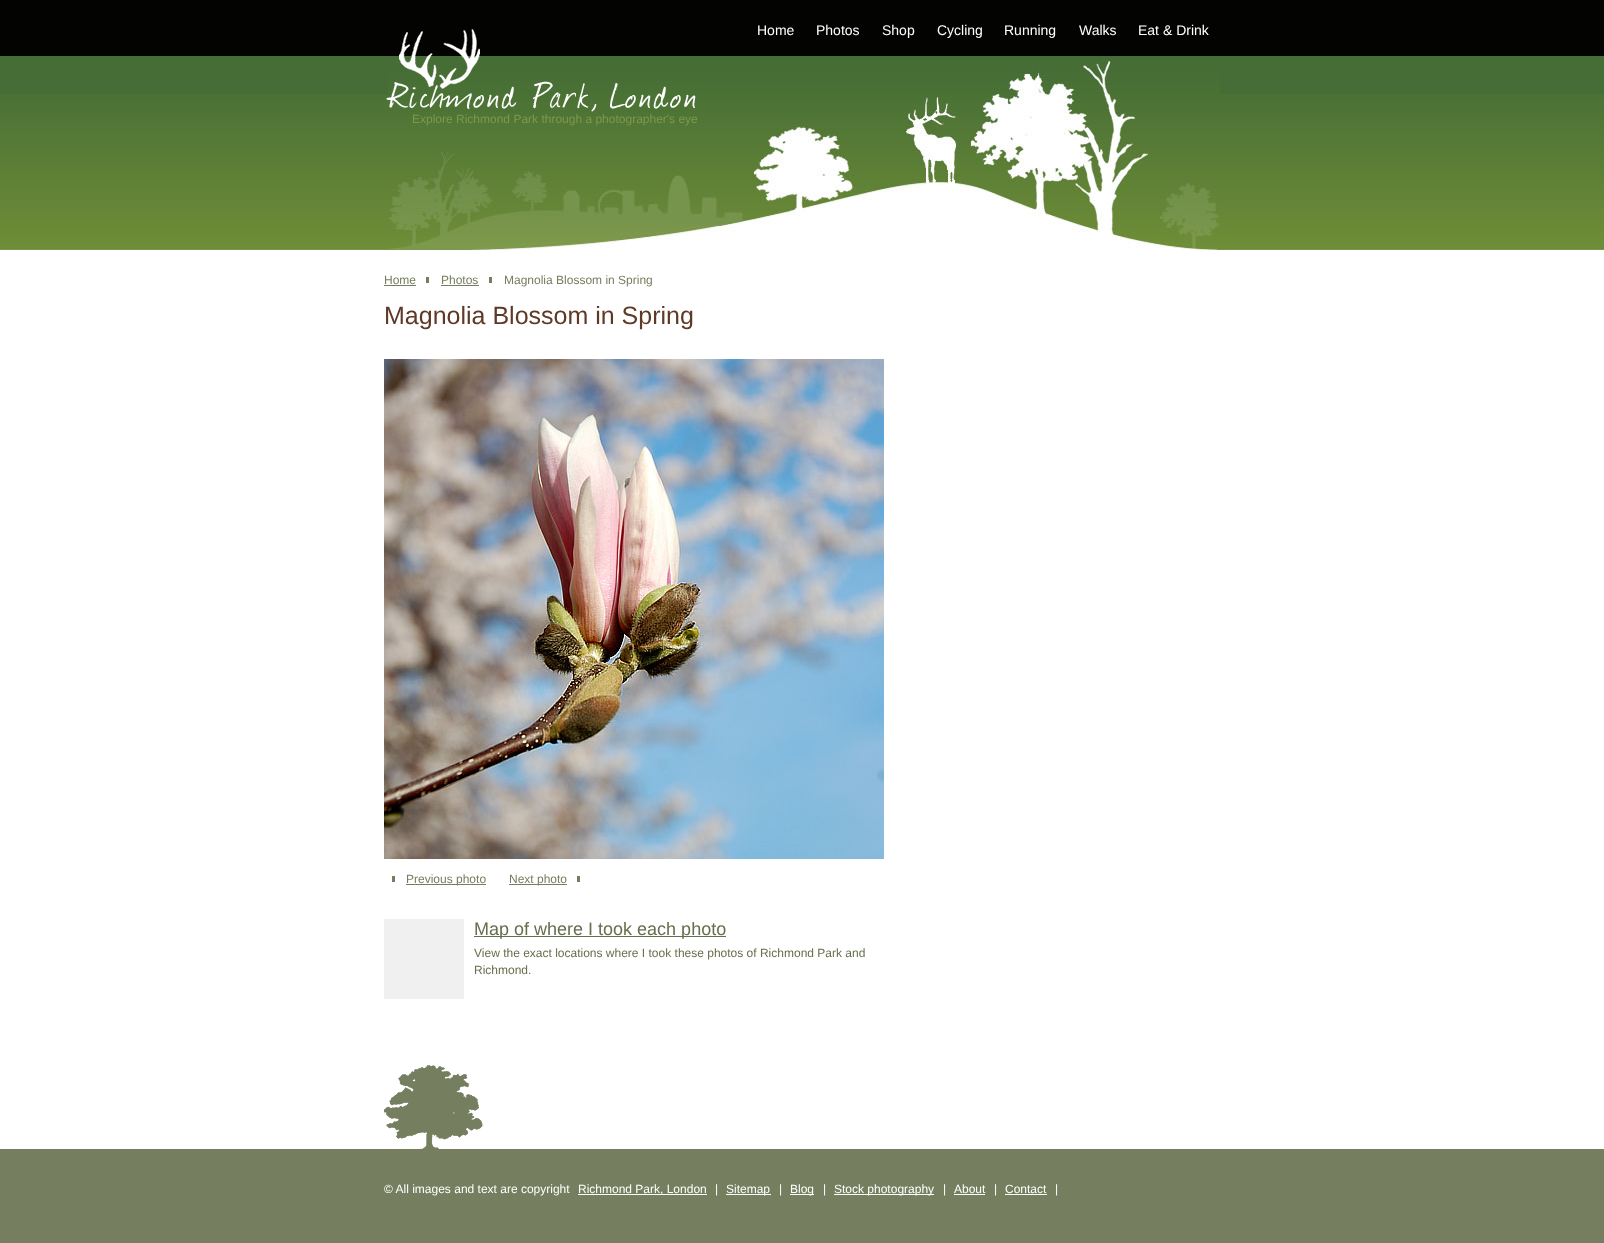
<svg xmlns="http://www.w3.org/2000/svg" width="1604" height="1243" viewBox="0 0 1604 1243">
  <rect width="100%" height="100%" fill="#757e5e"/>
  <rect x="0" y="0" width="1604" height="56" fill="#030302"/>
  <text x="757" y="35" font-family="Liberation Sans" font-size="14" fill="#ffffff">Home</text>
  <text x="816" y="35" font-family="Liberation Sans" font-size="14" fill="#ffffff">Photos</text>
  <text x="882" y="35" font-family="Liberation Sans" font-size="14" fill="#ffffff">Shop</text>
  <text x="937" y="35" font-family="Liberation Sans" font-size="14" fill="#ffffff">Cycling</text>
  <text x="1004" y="35" font-family="Liberation Sans" font-size="14" fill="#ffffff">Running</text>
  <text x="1079" y="35" font-family="Liberation Sans" font-size="14" fill="#ffffff">Walks</text>
  <text x="1138" y="35" font-family="Liberation Sans" font-size="14" fill="#ffffff">Eat &amp; Drink</text>
  <rect x="0" y="56" width="1604" height="38" fill="#456d35"/>
  <image x="0" y="94" width="1604" height="156" href="img1.png"/>
  <image x="388" y="57" width="832" height="193" href="img2.png"/>
  <image x="386" y="29" width="310" height="83" href="img3.png"/>
  <text x="412" y="123" font-family="Liberation Sans" font-size="12" fill="#7d994b">Explore Richmond Park through a photographer's eye</text>
  <rect x="0" y="250" width="1604" height="899" fill="#ffffff"/>
  <text x="384" y="284" font-family="Liberation Sans" font-size="12" fill="#757e5e">Home</text>
  <rect x="426" y="277" width="3" height="6" fill="#757e5e"/>
  <rect x="384" y="285" width="32" height="1" fill="#757e5e"/>
  <text x="441" y="284" font-family="Liberation Sans" font-size="12" fill="#757e5e">Photos</text>
  <rect x="489" y="277" width="3" height="6" fill="#757e5e"/>
  <rect x="441" y="285" width="38" height="1" fill="#757e5e"/>
  <text x="504" y="284" font-family="Liberation Sans" font-size="12" fill="#757e5e">Magnolia Blossom in Spring</text>
  <text x="384" y="324" font-family="Liberation Sans" font-size="25" fill="#5e3925">Magnolia Blossom in Spring</text>
  <image x="384" y="359" width="500" height="500" href="img4.png"/>
  <rect x="406" y="884" width="80" height="1" fill="#757e5e"/>
  <text x="406" y="883" font-family="Liberation Sans" font-size="12" fill="#757e5e">Previous photo</text>
  <rect x="392" y="876" width="3" height="6" fill="#757e5e"/>
  <rect x="509" y="884" width="58" height="1" fill="#757e5e"/>
  <text x="509" y="883" font-family="Liberation Sans" font-size="12" fill="#757e5e">Next photo</text>
  <rect x="577" y="876" width="3" height="6" fill="#757e5e"/>
  <rect x="384" y="919" width="80" height="80" fill="#f0f0f0"/>
  <rect x="474" y="936" width="252" height="1" fill="#656f4c"/>
  <text x="474" y="935" font-family="Liberation Sans" font-size="18" fill="#656f4c">Map of where I took each photo</text>
  <text x="474" y="957" font-family="Liberation Sans" font-size="12" fill="#656f4c">View the exact locations where I took these photos of Richmond Park and</text>
  <text x="474" y="974" font-family="Liberation Sans" font-size="12" fill="#656f4c">Richmond.</text>
  <image x="384" y="1064" width="100" height="85" href="img5.png"/>
  <text x="384" y="1193" font-family="Liberation Sans" font-size="12" fill="#ffffff">© All images and text are copyright</text>
  <rect x="578" y="1194" width="129" height="1" fill="#ffffff"/>
  <text x="578" y="1193" font-family="Liberation Sans" font-size="12" fill="#ffffff">Richmond Park, London</text>
  <text x="715" y="1193" font-family="Liberation Sans" font-size="12" fill="#ffffff">|</text>
  <rect x="726" y="1194" width="45" height="1" fill="#ffffff"/>
  <text x="726" y="1193" font-family="Liberation Sans" font-size="12" fill="#ffffff">Sitemap</text>
  <text x="779" y="1193" font-family="Liberation Sans" font-size="12" fill="#ffffff">|</text>
  <rect x="790" y="1194" width="24" height="1" fill="#ffffff"/>
  <text x="790" y="1193" font-family="Liberation Sans" font-size="12" fill="#ffffff">Blog</text>
  <text x="823" y="1193" font-family="Liberation Sans" font-size="12" fill="#ffffff">|</text>
  <rect x="834" y="1194" width="100" height="1" fill="#ffffff"/>
  <text x="834" y="1193" font-family="Liberation Sans" font-size="12" fill="#ffffff">Stock photography</text>
  <text x="943" y="1193" font-family="Liberation Sans" font-size="12" fill="#ffffff">|</text>
  <text x="954" y="1193" font-family="Liberation Sans" font-size="12" fill="#ffffff">About</text>
  <rect x="954" y="1194" width="31" height="1" fill="#ffffff"/>
  <text x="994" y="1193" font-family="Liberation Sans" font-size="12" fill="#ffffff">|</text>
  <text x="1005" y="1193" font-family="Liberation Sans" font-size="12" fill="#ffffff">Contact</text>
  <rect x="1005" y="1194" width="42" height="1" fill="#ffffff"/>
  <text x="1055" y="1193" font-family="Liberation Sans" font-size="12" fill="#ffffff">|</text>
</svg>
